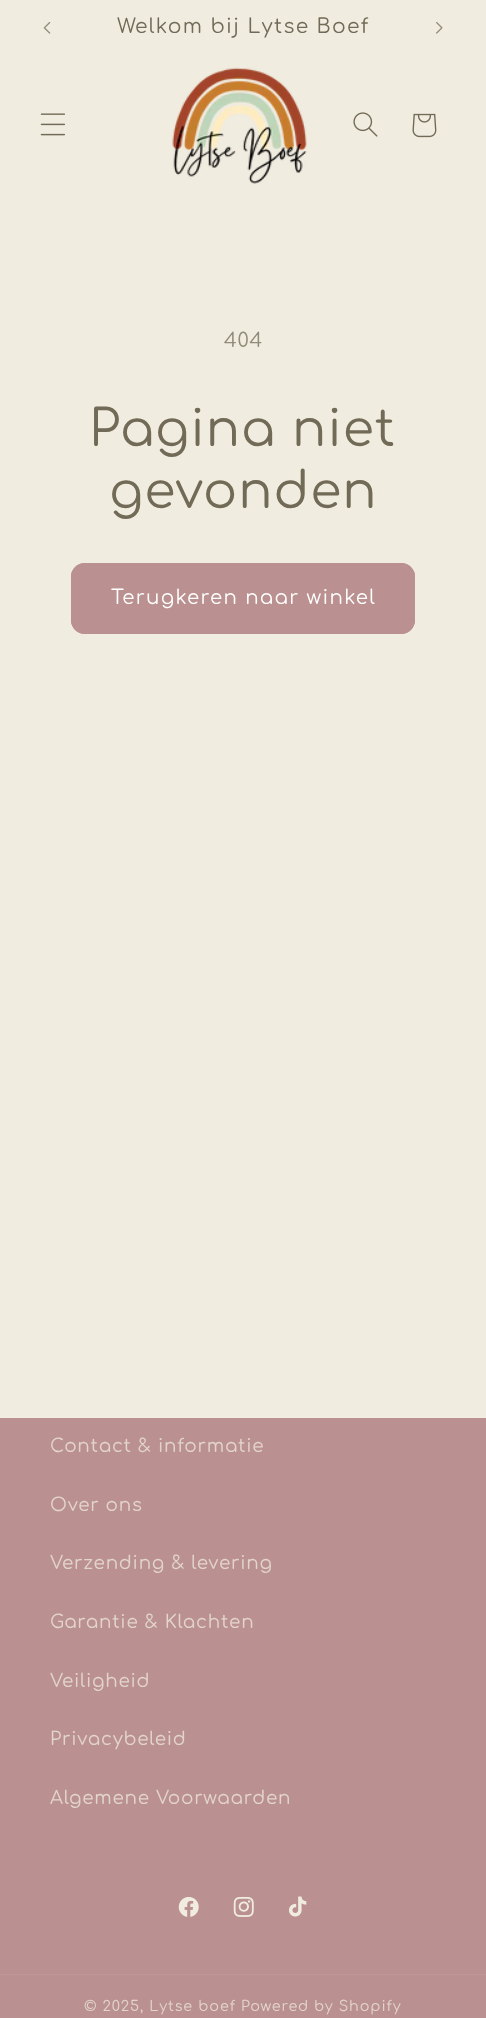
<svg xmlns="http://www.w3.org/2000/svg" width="486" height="2018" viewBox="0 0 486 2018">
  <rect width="100%" height="100%" fill="#f1ece0"/>
  <image x="43" y="22" width="8" height="12" href="img1.png"/>
  <text x="117" y="33" font-family="Comfortaa" font-size="20.25" letter-spacing="1.3" fill="#716a56">Welkom bij Lytse Boef</text>
  <image x="436" y="22" width="7" height="12" href="img2.png"/>
  <image x="40" y="113" width="25" height="23" href="img3.png"/>
  <image x="172" y="67" width="135" height="117" href="img4.png"/>
  <image x="353" y="112" width="25" height="25" href="img5.png"/>
  <image x="412" y="113" width="25" height="25" href="img6.png"/>
  <text x="224" y="347" font-family="Comfortaa" font-size="19.75" letter-spacing="0.75" fill="#918b79">404</text>
  <text x="89" y="446" font-family="Comfortaa" font-size="50.5" letter-spacing="1" fill="#716a56">Pagina niet</text>
  <text x="109" y="508" font-family="Comfortaa" font-size="50.5" letter-spacing="1" fill="#716a56">gevonden</text>
  <rect x="71" y="563" width="344" height="71" rx="14" fill="#ba9090"/>
  <rect x="74" y="566" width="338" height="65" rx="11" fill="none" stroke="#ba9090" stroke-width="6"/>
  <text x="111" y="604" font-family="Comfortaa" font-size="19.75" letter-spacing="1.3" fill="#ffffff">Terugkeren naar winkel</text>
  <rect x="0" y="1418" width="486" height="600" fill="#ba9090"/>
  <text x="50" y="1452" font-family="Comfortaa" font-size="18.4" letter-spacing="0.75" fill="#e3d5cc">Contact &amp; informatie</text>
  <text x="50" y="1511" font-family="Comfortaa" font-size="18.4" letter-spacing="0.75" fill="#e3d5cc">Over ons</text>
  <text x="50" y="1569" font-family="Comfortaa" font-size="18.4" letter-spacing="0.75" fill="#e3d5cc">Verzending &amp; levering</text>
  <text x="50" y="1628" font-family="Comfortaa" font-size="18.4" letter-spacing="0.75" fill="#e3d5cc">Garantie &amp; Klachten</text>
  <text x="50" y="1687" font-family="Comfortaa" font-size="18.4" letter-spacing="0.75" fill="#e3d5cc">Veiligheid</text>
  <text x="50" y="1745" font-family="Comfortaa" font-size="18.4" letter-spacing="0.75" fill="#e3d5cc">Privacybeleid</text>
  <text x="50" y="1804" font-family="Comfortaa" font-size="18.4" letter-spacing="0.75" fill="#e3d5cc">Algemene Voorwaarden</text>
  <image x="178" y="1897" width="21" height="20" href="img7.png"/>
  <image x="233" y="1896" width="21" height="21" href="img8.png"/>
  <image x="289" y="1896" width="18" height="21" href="img9.png"/>
  <rect x="0" y="1974" width="486" height="1" fill="#be9796"/>
  <text x="84" y="2011" font-family="Comfortaa" font-size="14.4" letter-spacing="0.9" fill="#e3d5cc">© 2025, Lytse boef Powered by Shopify</text>
</svg>
